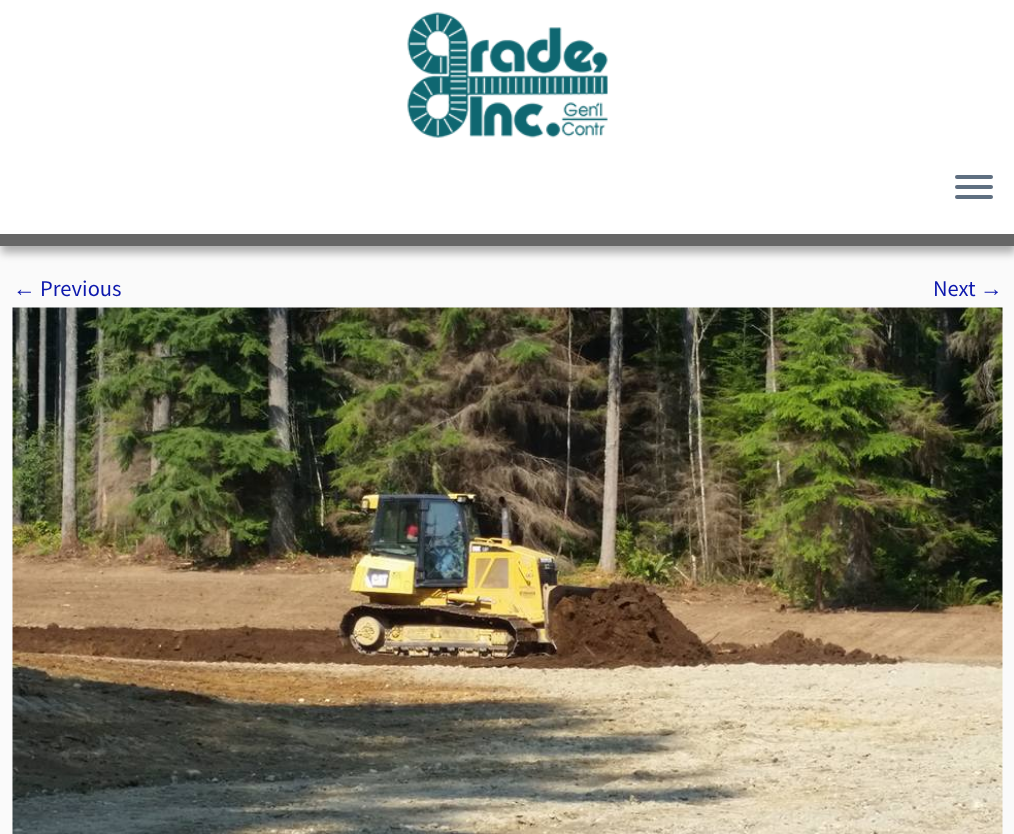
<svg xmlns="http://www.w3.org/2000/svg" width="1014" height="834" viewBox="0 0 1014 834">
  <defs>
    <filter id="blur1" x="-50%" y="-200%" width="200%" height="500%"><feGaussianBlur stdDeviation="4.5"/></filter>
  </defs>
  <rect width="100%" height="100%" fill="#fafafa"/>
  <rect x="1" y="6" width="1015" height="247" fill="#000000" fill-opacity="0.3" filter="url(#blur1)"/>
  <rect x="0" y="0" width="1014" height="234" fill="#ffffff"/>
  <rect x="0" y="234" width="1014" height="12" fill="#666666"/>
  <image x="407" y="12" width="201" height="126" href="img1.png"/>
  <rect x="955" y="175" width="38" height="4" rx="2" fill="#5f6f81"/>
  <rect x="955" y="185" width="38" height="4" rx="2" fill="#5f6f81"/>
  <rect x="955" y="195" width="38" height="4" rx="2" fill="#5f6f81"/>
  <text x="13" y="296" font-family="Liberation Serif" font-size="22.5" fill="#0e19ad">←</text>
  <text x="40" y="296" font-family="Source Sans Pro" font-size="22.5" fill="#0e19ad">Previous</text>
  <text x="933" y="296" font-family="Source Sans Pro" font-size="22.5" fill="#0e19ad">Next</text>
  <text x="980" y="296" font-family="Liberation Serif" font-size="22.5" fill="#0e19ad">→</text>
  <image x="12" y="307" width="991" height="527" href="img2.png"/>
</svg>
